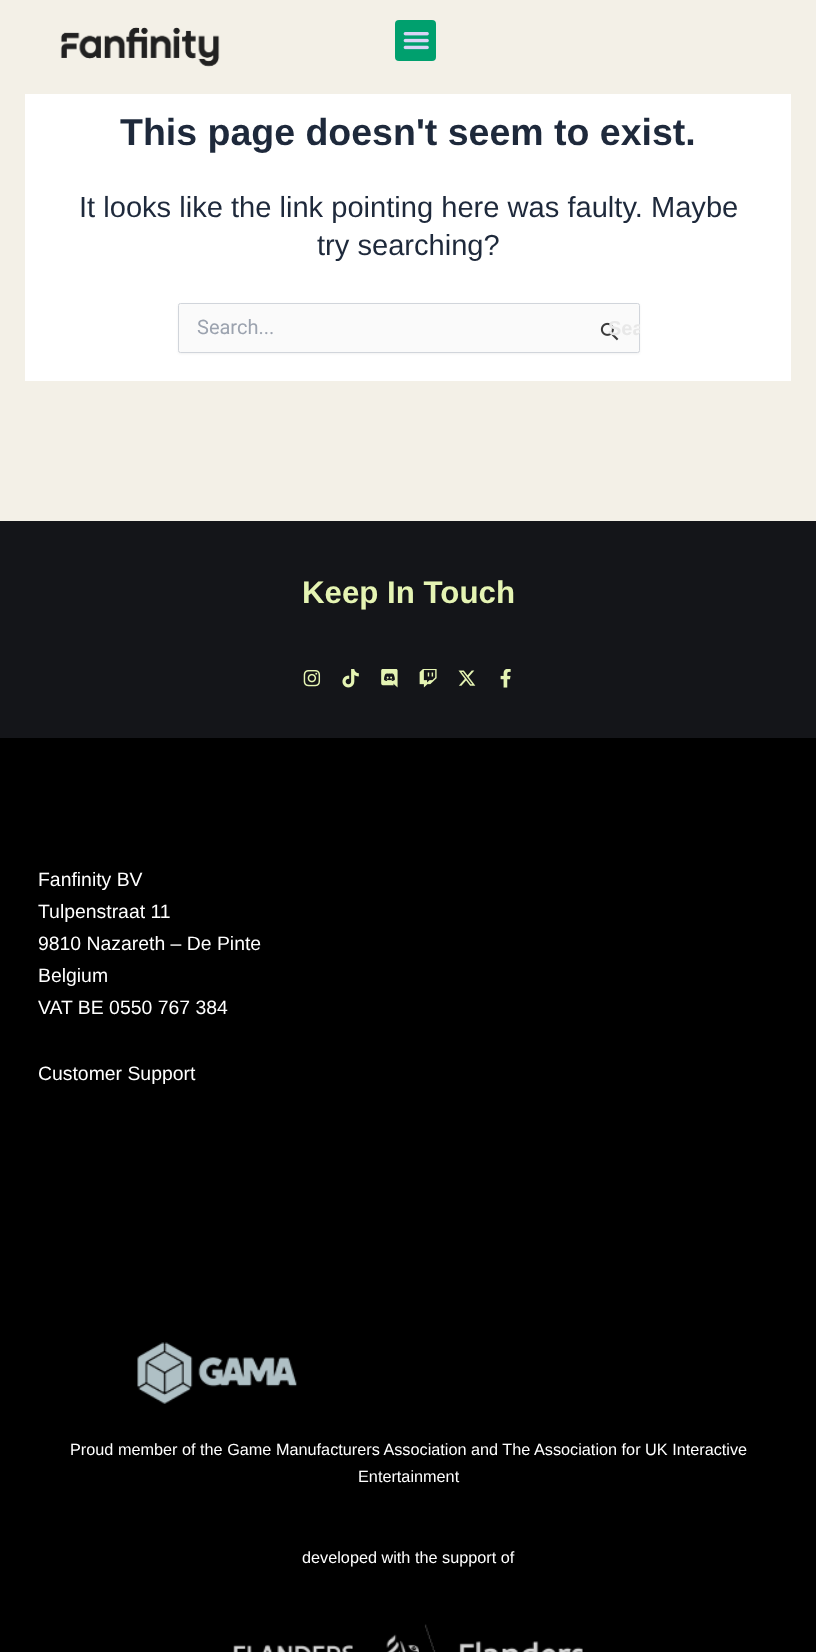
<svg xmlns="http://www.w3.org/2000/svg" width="816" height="1652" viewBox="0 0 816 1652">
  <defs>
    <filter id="blur1" x="-50%" y="-200%" width="200%" height="500%"><feGaussianBlur stdDeviation="1"/></filter>
    <clipPath id="clip1"><rect x="584" y="303" width="56" height="52" rx="2.5"/></clipPath>
  </defs>
  <rect width="100%" height="100%" fill="#f3f0e7"/>
  <image x="60" y="27" width="160" height="40" href="img1.png"/>
  <rect x="395" y="20" width="41" height="41" rx="4" fill="#00a06e"/>
  <image x="403" y="32" width="26" height="18" href="img2.png"/>
  <rect x="25" y="94" width="766" height="287" fill="#ffffff"/>
  <text x="120" y="145" font-family="Liberation Sans" font-size="37.5" font-weight="bold" fill="#1e293b">This page doesn't seem to exist.</text>
  <text x="79" y="217" font-family="Liberation Sans" font-size="29.1" fill="#1e293b">It looks like the link pointing here was faulty. Maybe</text>
  <text x="317" y="255" font-family="Liberation Sans" font-size="29.1" fill="#1e293b">try searching?</text>
  <rect x="178" y="304" width="462" height="50" rx="2.5" fill="#000000" fill-opacity="0.05" filter="url(#blur1)"/>
  <rect x="178.5" y="303.5" width="461" height="49" rx="2" fill="#fafafa" stroke="#d1d5db"/>
  <text x="197" y="334" font-family="Roboto" font-size="20" fill="#9ca3af">Search...</text>
  <image x="600" y="322" width="19" height="19" href="img3.png"/>
  <g clip-path="url(#clip1)">
    <text x="608" y="335" font-family="Liberation Sans" font-size="20" font-weight="bold" fill="#e8e8e8">Sea</text>
  </g>
  <rect x="0" y="521" width="816" height="217" fill="#141519"/>
  <text x="302" y="603" font-family="Liberation Sans" font-size="31.25" font-weight="bold" fill="#e5f4b3">Keep In Touch</text>
  <image x="303" y="670" width="18" height="17" href="img4.png"/>
  <image x="342" y="669" width="17" height="19" href="img5.png"/>
  <image x="381" y="669" width="17" height="19" href="img6.png"/>
  <image x="419" y="669" width="18" height="19" href="img7.png"/>
  <image x="458" y="670" width="18" height="16" href="img8.png"/>
  <image x="500" y="669" width="11" height="19" href="img9.png"/>
  <rect x="0" y="738" width="816" height="914" fill="#000000"/>
  <text x="38" y="886" font-family="Liberation Sans" font-size="19.4" fill="#ffffff">Fanfinity BV</text>
  <text x="38" y="918" font-family="Liberation Sans" font-size="19.4" fill="#ffffff">Tulpenstraat 11</text>
  <text x="38" y="950" font-family="Liberation Sans" font-size="19.4" fill="#ffffff">9810 Nazareth – De Pinte</text>
  <text x="38" y="982" font-family="Liberation Sans" font-size="19.4" fill="#ffffff">Belgium</text>
  <text x="38" y="1014" font-family="Liberation Sans" font-size="19.4" fill="#ffffff">VAT BE 0550 767 384</text>
  <text x="38" y="1080" font-family="Liberation Sans" font-size="19.4" fill="#ffffff">Customer Support</text>
  <image x="137" y="1342" width="160" height="62" href="img10.png"/>
  <text x="70" y="1455" font-family="Liberation Sans" font-size="16.25" fill="#ffffff">Proud member of the Game Manufacturers Association and The Association for UK Interactive</text>
  <text x="358" y="1482" font-family="Liberation Sans" font-size="16.25" fill="#ffffff">Entertainment</text>
  <text x="302" y="1563" font-family="Liberation Sans" font-size="16.25" fill="#ffffff">developed with the support of</text>
  <image x="233" y="1624" width="350" height="28" href="img11.png"/>
</svg>
